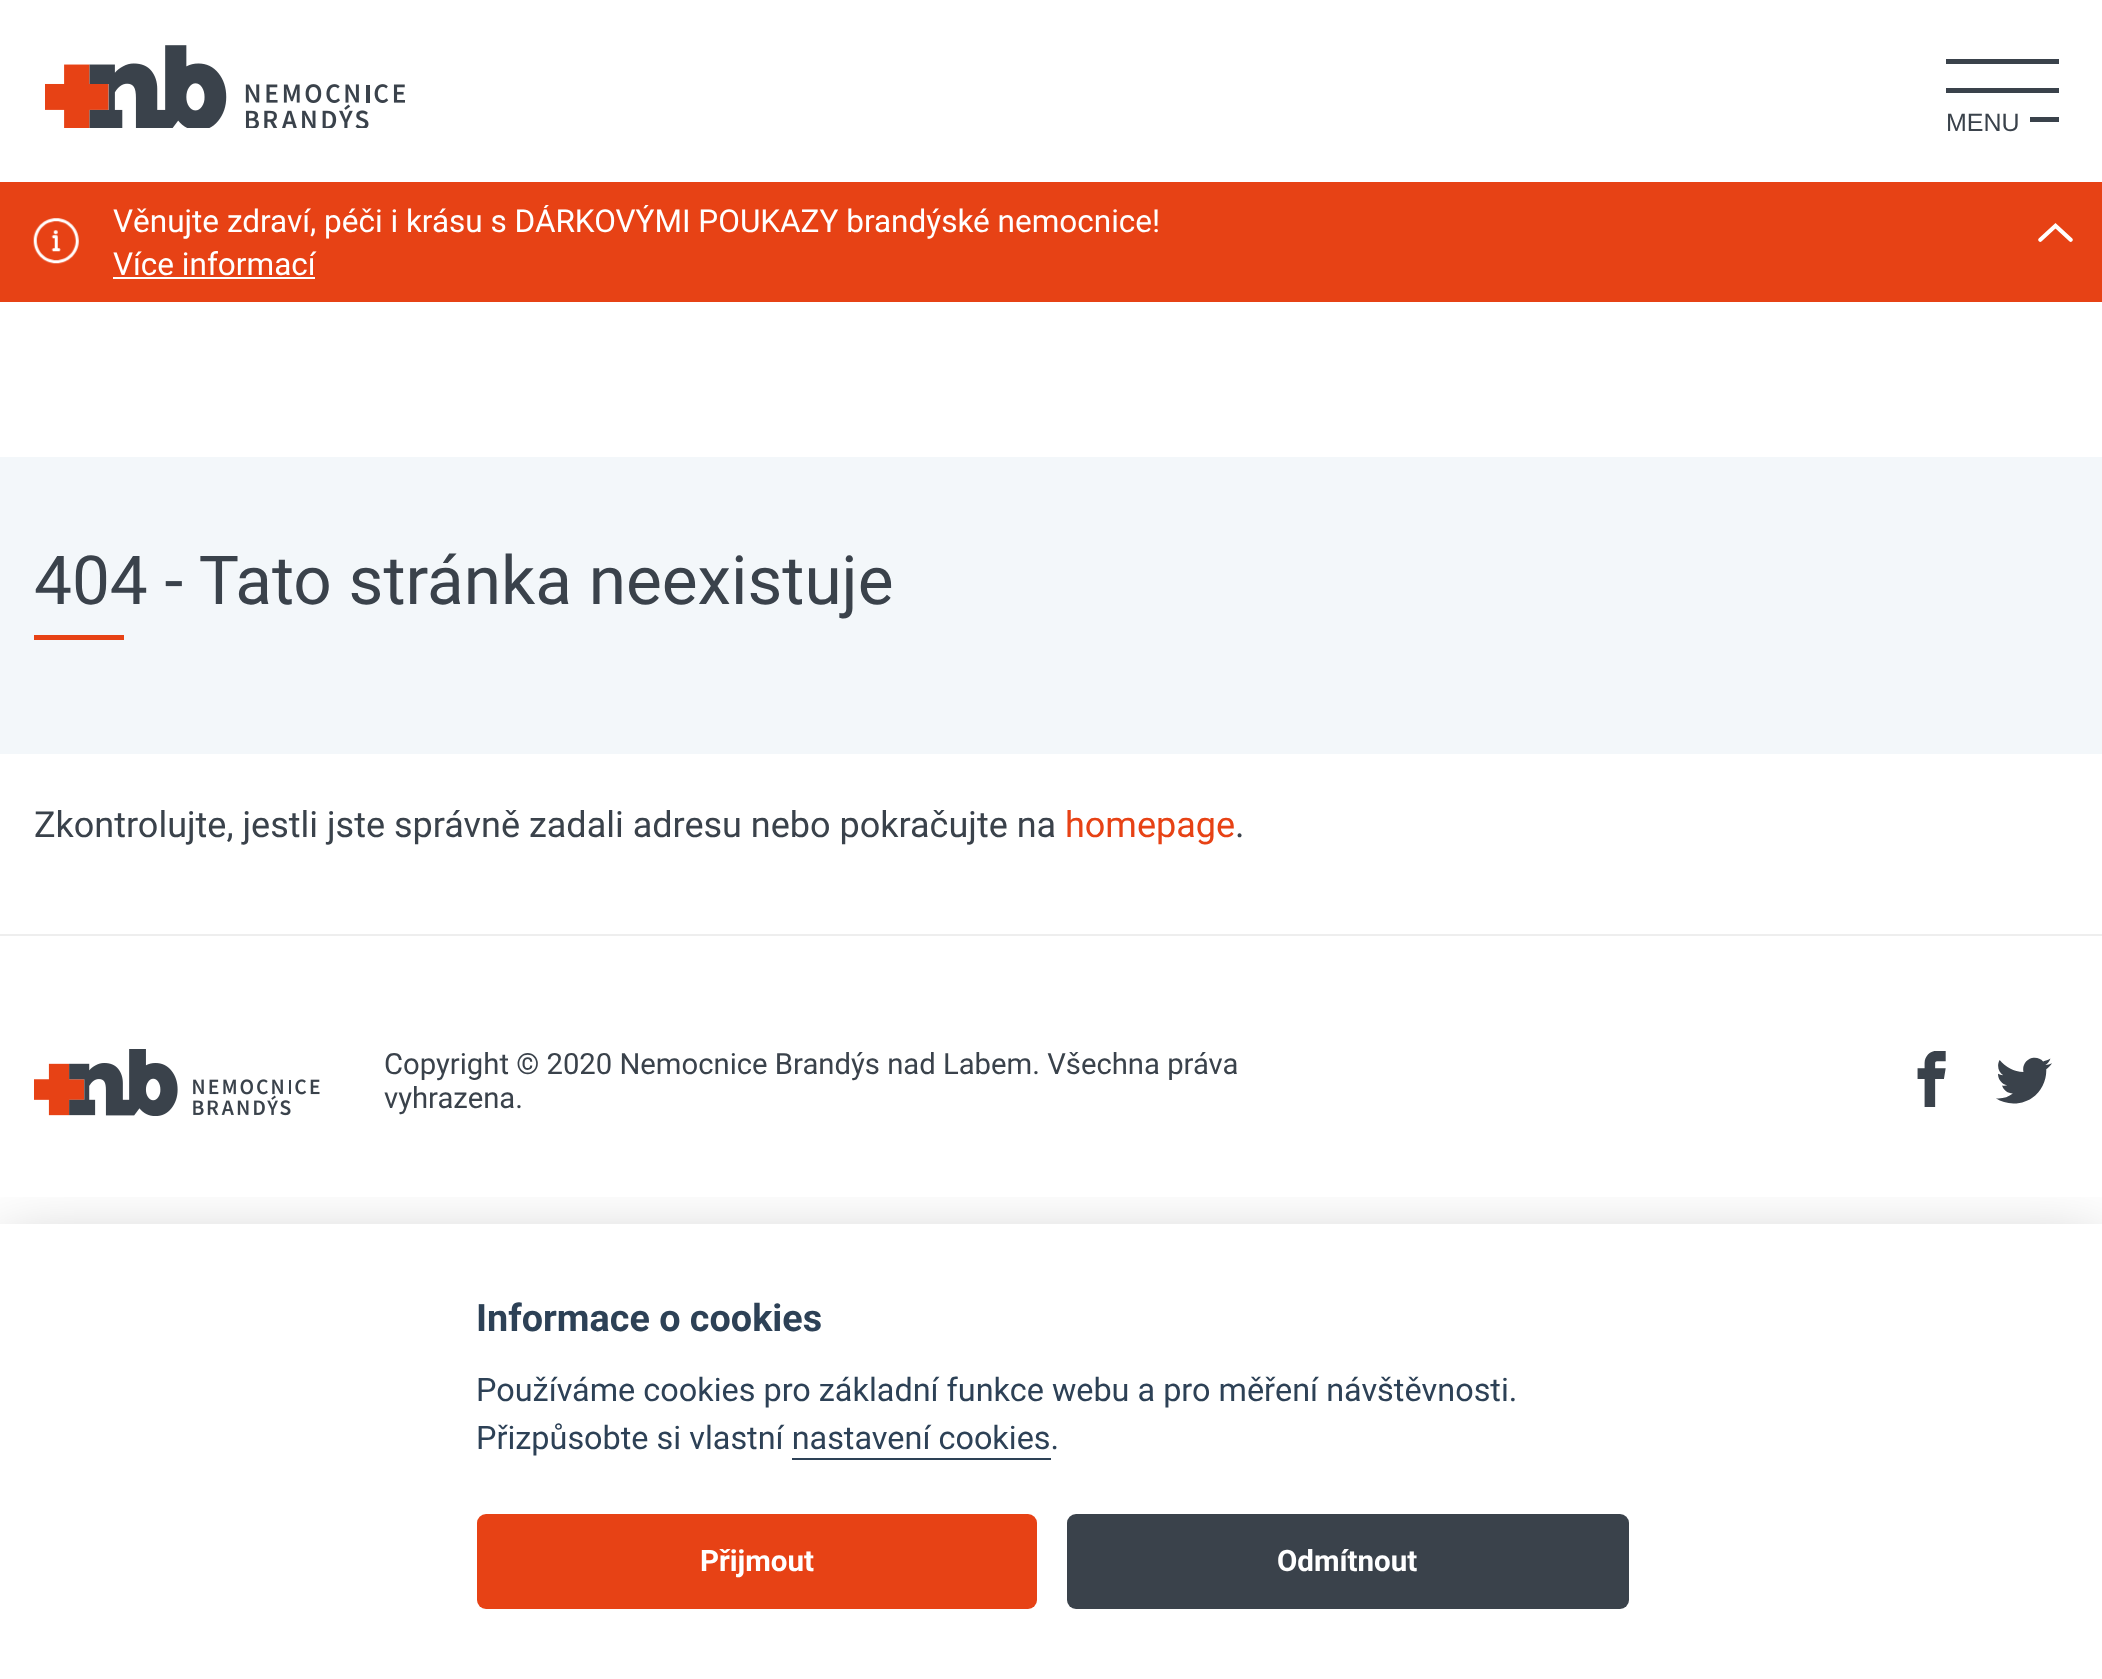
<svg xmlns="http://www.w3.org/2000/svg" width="2102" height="1679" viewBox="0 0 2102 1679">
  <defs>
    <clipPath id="clip1"><rect x="34" y="205" width="2036" height="74"/></clipPath>
    <clipPath id="clip2"><rect x="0" y="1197" width="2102" height="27"/></clipPath>
    <filter id="blur1" x="-50%" y="-200%" width="200%" height="500%"><feGaussianBlur stdDeviation="34"/></filter>
  </defs>
  <rect width="100%" height="100%" fill="#ffffff"/>
  <image x="45" y="45" width="360" height="83" href="img1.png"/>
  <rect x="1946" y="88" width="113" height="5" fill="#3a424b"/>
  <rect x="1946" y="59" width="113" height="5" fill="#3a424b"/>
  <rect x="2030" y="117" width="29" height="5" fill="#3a424b"/>
  <text x="1946" y="131" font-family="Liberation Sans" font-size="25" fill="#3a424b">MENU</text>
  <rect x="0" y="182" width="2102" height="120" fill="#e74215"/>
  <image x="33" y="218" width="46" height="46" href="img2.png"/>
  <g clip-path="url(#clip1)">
    <text x="113" y="232" font-family="Roboto" font-size="31.5" fill="#ffffff">Věnujte zdraví, péči i krásu s DÁRKOVÝMI POUKAZY brandýské nemocnice!</text>
  </g>
  <text x="113" y="275" font-family="Roboto" font-size="31.5" fill="#ffffff">Více informací</text>
  <rect x="113" y="277" width="202" height="2" fill="#ffffff"/>
  <image x="2038" y="223" width="35" height="19" href="img3.png"/>
  <rect x="0" y="457" width="2102" height="297" fill="#f3f7fa"/>
  <text x="34" y="604" font-family="Roboto" font-size="67.5" fill="#3a424b">404 - Tato stránka neexistuje</text>
  <rect x="34" y="635" width="90" height="5" fill="#e74215"/>
  <text x="34" y="837" font-family="Roboto" font-size="36" fill="#3a424b">Zkontrolujte, jestli jste správně zadali adresu nebo pokračujte na</text>
  <text x="1065" y="837" font-family="Roboto" font-size="36" fill="#e74215">homepage</text>
  <text x="1235" y="837" font-family="Roboto" font-size="36" fill="#3a424b">.</text>
  <rect x="0" y="934" width="2102" height="2" fill="#eeeeee"/>
  <image x="34" y="1049" width="286" height="67" href="img4.png"/>
  <text x="384" y="1074" font-family="Roboto" font-size="29.25" fill="#3a424b">Copyright © 2020 Nemocnice Brandýs nad Labem. Všechna práva</text>
  <text x="384" y="1108" font-family="Roboto" font-size="29.25" fill="#3a424b">vyhrazena.</text>
  <image x="1917" y="1051" width="29" height="56" href="img5.png"/>
  <image x="1996" y="1057" width="56" height="47" href="img6.png"/>
  <g clip-path="url(#clip2)">
    <rect x="0" y="1247" width="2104" height="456" fill="#020203" fill-opacity="0.28" filter="url(#blur1)"/>
  </g>
  <text x="476" y="1331" font-family="Roboto" font-size="37.75" font-weight="bold" fill="#2d4156">Informace o cookies</text>
  <text x="476" y="1401" font-family="Roboto" font-size="32.4" fill="#2d4156">Používáme cookies pro základní funkce webu a pro měření návštěvnosti.</text>
  <text x="476" y="1449" font-family="Roboto" font-size="32.4" fill="#2d4156">Přizpůsobte si vlastní nastavení cookies.</text>
  <rect x="792" y="1458" width="259" height="2" fill="#2d4156"/>
  <rect x="477" y="1514" width="560" height="95" rx="9" fill="#e74215"/>
  <text x="700" y="1571" font-family="Roboto" font-size="29.5" font-weight="bold" fill="#ffffff">Přijmout</text>
  <rect x="1067" y="1514" width="562" height="95" rx="9" fill="#3a424b"/>
  <text x="1277" y="1571" font-family="Roboto" font-size="29.5" font-weight="bold" fill="#ffffff">Odmítnout</text>
</svg>
